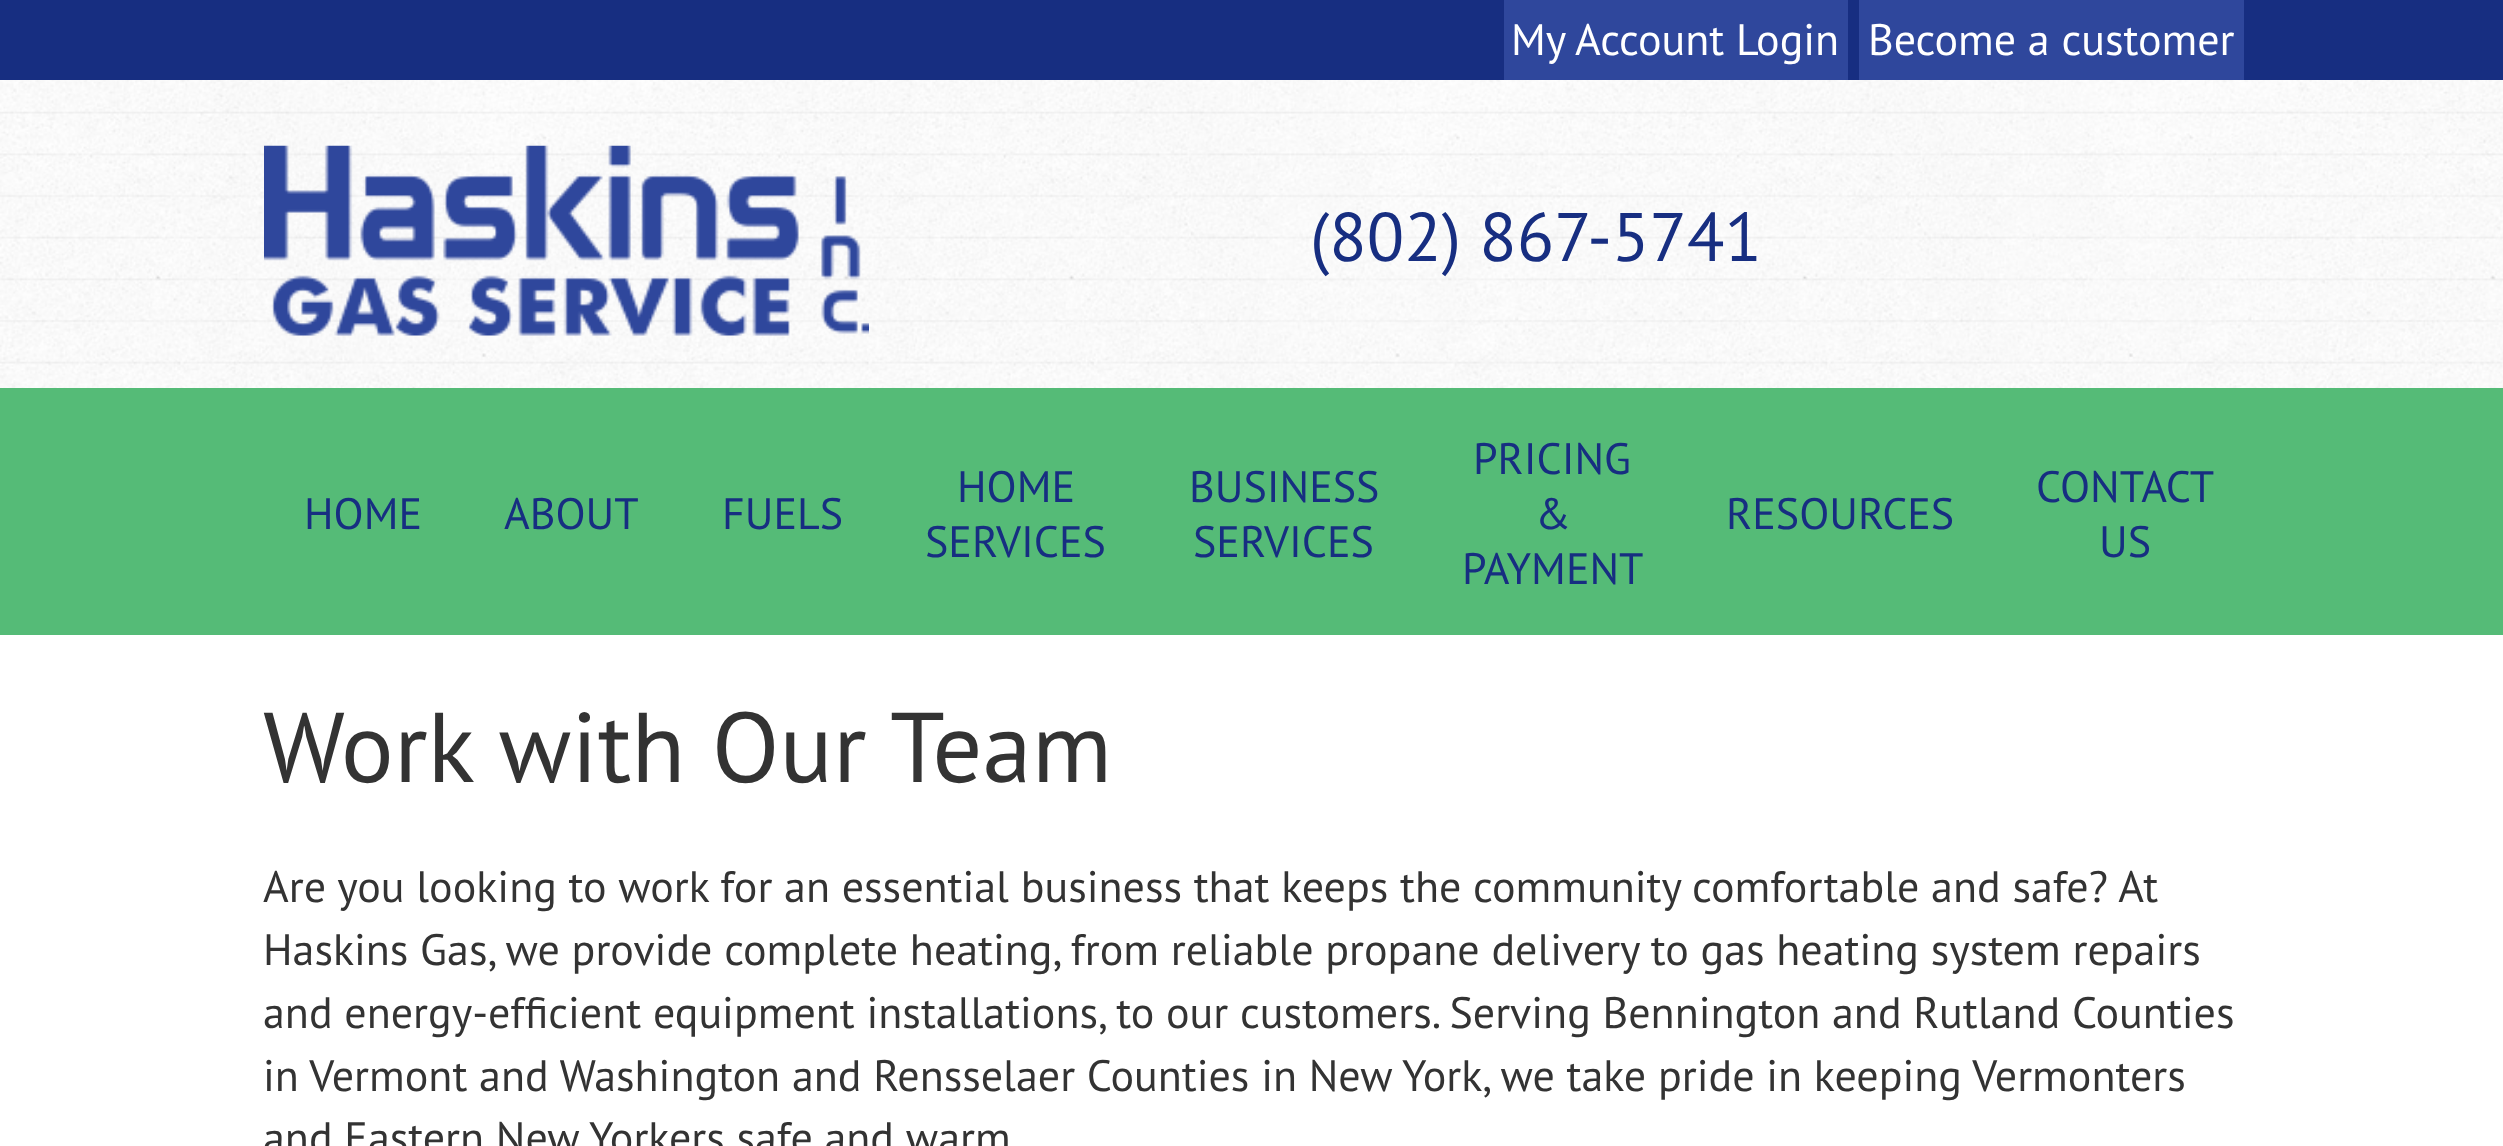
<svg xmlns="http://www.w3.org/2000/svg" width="2503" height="1146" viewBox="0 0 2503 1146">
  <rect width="100%" height="100%" fill="#ffffff"/>
  <image x="0" y="80" width="2503" height="308" href="img1.png"/>
  <rect x="0" y="0" width="2503" height="80" fill="#172e81"/>
  <rect x="1504" y="0" width="344" height="80" fill="#2f479c"/>
  <text x="1511" y="55" font-family="PT Sans" font-size="44" fill="#ffffff">My Account Login</text>
  <rect x="1859" y="0" width="385" height="80" fill="#2f479c"/>
  <text x="1868" y="55" font-family="PT Sans" font-size="44" fill="#ffffff">Become a customer</text>
  <image x="264" y="145" width="605" height="191" href="img2.png"/>
  <text x="1310" y="261" font-family="PT Sans" font-size="68.75" fill="#172e81">(802) 867-5741</text>
  <rect x="0" y="388" width="2503" height="247" fill="#55bb77"/>
  <text x="304" y="529" font-family="PT Sans" font-size="44" fill="#172e81">HOME</text>
  <text x="504" y="529" font-family="PT Sans" font-size="44" fill="#172e81">ABOUT</text>
  <text x="722" y="529" font-family="PT Sans" font-size="44" fill="#172e81">FUELS</text>
  <text x="957" y="502" font-family="PT Sans" font-size="44" fill="#172e81">HOME</text>
  <text x="925" y="557" font-family="PT Sans" font-size="44" fill="#172e81">SERVICES</text>
  <text x="1189" y="502" font-family="PT Sans" font-size="44" fill="#172e81">BUSINESS</text>
  <text x="1193" y="557" font-family="PT Sans" font-size="44" fill="#172e81">SERVICES</text>
  <text x="1473" y="474" font-family="PT Sans" font-size="44" fill="#172e81">PRICING</text>
  <text x="1535" y="529" font-family="PT Sans" font-size="44" fill="#172e81">&amp;</text>
  <text x="1462" y="584" font-family="PT Sans" font-size="44" fill="#172e81">PAYMENT</text>
  <text x="1726" y="529" font-family="PT Sans" font-size="44" fill="#172e81">RESOURCES</text>
  <text x="2036" y="502" font-family="PT Sans" font-size="44" fill="#172e81">CONTACT</text>
  <text x="2099" y="557" font-family="PT Sans" font-size="44" fill="#172e81">US</text>
  <text x="263" y="782" font-family="PT Sans" font-size="99" fill="#333333">Work with Our Team</text>
  <text x="263" y="902" font-family="PT Sans" font-size="44" fill="#333333">Are you looking to work for an essential business that keeps the community comfortable and safe? At</text>
  <text x="263" y="965" font-family="PT Sans" font-size="44" fill="#333333">Haskins Gas, we provide complete heating, from reliable propane delivery to gas heating system repairs</text>
  <text x="263" y="1028" font-family="PT Sans" font-size="44" fill="#333333">and energy-efficient equipment installations, to our customers. Serving Bennington and Rutland Counties</text>
  <text x="263" y="1091" font-family="PT Sans" font-size="44" fill="#333333">in Vermont and Washington and Rensselaer Counties in New York, we take pride in keeping Vermonters</text>
  <text x="263" y="1153" font-family="PT Sans" font-size="44" fill="#333333">and Eastern New Yorkers safe and warm</text>
</svg>
